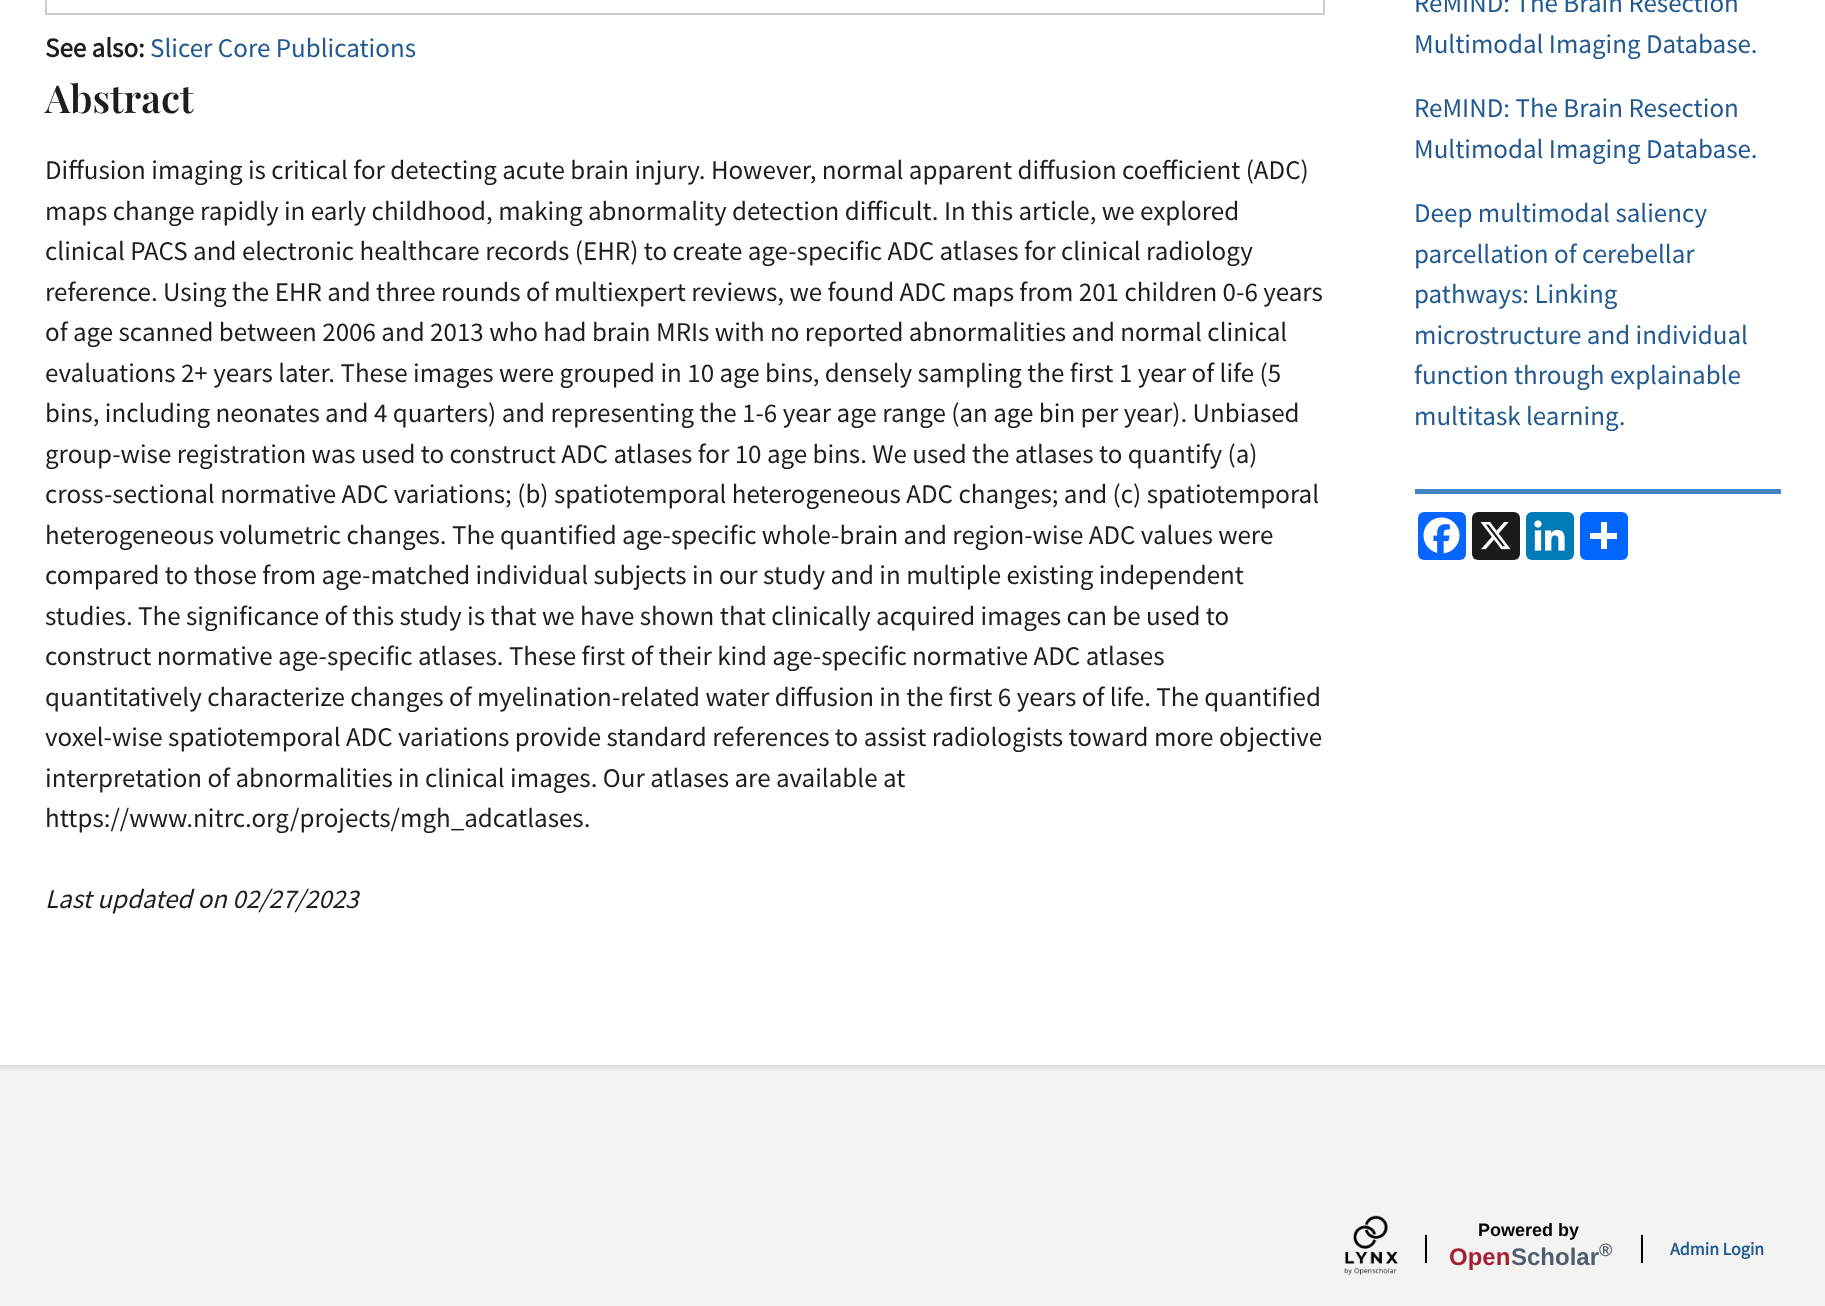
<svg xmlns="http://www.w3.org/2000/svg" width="1825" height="1306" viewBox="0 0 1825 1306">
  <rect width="100%" height="100%" fill="#ffffff"/>
  <rect x="46" y="-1" width="1278" height="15" fill="none" stroke="#cccccc" stroke-width="2"/>
  <text x="45" y="57" font-family="Source Sans Pro" font-size="27" font-weight="bold" fill="#1e1e1e">See also:</text>
  <text x="150" y="57" font-family="Source Sans Pro" font-size="27" fill="#215990">Slicer Core Publications</text>
  <text x="45" y="113" font-family="Playfair Display" font-size="38.5" font-weight="600" fill="#1e1e1e">Abstract</text>
  <text x="45" y="179" font-family="Source Sans Pro" font-size="27" fill="#1e1e1e">Diffusion imaging is critical for detecting acute brain injury. However, normal apparent diffusion coefficient (ADC)</text>
  <text x="45" y="220" font-family="Source Sans Pro" font-size="27" fill="#1e1e1e">maps change rapidly in early childhood, making abnormality detection difficult. In this article, we explored</text>
  <text x="45" y="260" font-family="Source Sans Pro" font-size="27" fill="#1e1e1e">clinical PACS and electronic healthcare records (EHR) to create age-specific ADC atlases for clinical radiology</text>
  <text x="45" y="301" font-family="Source Sans Pro" font-size="27" fill="#1e1e1e">reference. Using the EHR and three rounds of multiexpert reviews, we found ADC maps from 201 children 0-6 years</text>
  <text x="45" y="341" font-family="Source Sans Pro" font-size="27" fill="#1e1e1e">of age scanned between 2006 and 2013 who had brain MRIs with no reported abnormalities and normal clinical</text>
  <text x="45" y="382" font-family="Source Sans Pro" font-size="27" fill="#1e1e1e">evaluations 2+ years later. These images were grouped in 10 age bins, densely sampling the first 1 year of life (5</text>
  <text x="45" y="422" font-family="Source Sans Pro" font-size="27" fill="#1e1e1e">bins, including neonates and 4 quarters) and representing the 1-6 year age range (an age bin per year). Unbiased</text>
  <text x="45" y="463" font-family="Source Sans Pro" font-size="27" fill="#1e1e1e">group-wise registration was used to construct ADC atlases for 10 age bins. We used the atlases to quantify (a)</text>
  <text x="45" y="503" font-family="Source Sans Pro" font-size="27" fill="#1e1e1e">cross-sectional normative ADC variations; (b) spatiotemporal heterogeneous ADC changes; and (c) spatiotemporal</text>
  <text x="45" y="544" font-family="Source Sans Pro" font-size="27" fill="#1e1e1e">heterogeneous volumetric changes. The quantified age-specific whole-brain and region-wise ADC values were</text>
  <text x="45" y="584" font-family="Source Sans Pro" font-size="27" fill="#1e1e1e">compared to those from age-matched individual subjects in our study and in multiple existing independent</text>
  <text x="45" y="625" font-family="Source Sans Pro" font-size="27" fill="#1e1e1e">studies. The significance of this study is that we have shown that clinically acquired images can be used to</text>
  <text x="45" y="665" font-family="Source Sans Pro" font-size="27" fill="#1e1e1e">construct normative age-specific atlases. These first of their kind age-specific normative ADC atlases</text>
  <text x="45" y="706" font-family="Source Sans Pro" font-size="27" fill="#1e1e1e">quantitatively characterize changes of myelination-related water diffusion in the first 6 years of life. The quantified</text>
  <text x="45" y="746" font-family="Source Sans Pro" font-size="27" fill="#1e1e1e">voxel-wise spatiotemporal ADC variations provide standard references to assist radiologists toward more objective</text>
  <text x="45" y="787" font-family="Source Sans Pro" font-size="27" fill="#1e1e1e">interpretation of abnormalities in clinical images. Our atlases are available at</text>
  <text x="45" y="827" font-family="Source Sans Pro" font-size="27" fill="#1e1e1e">https://www.nitrc.org/projects/mgh_adcatlases.</text>
  <text x="45" y="908" font-family="Source Sans Pro" font-size="27" font-style="italic" fill="#1e1e1e">Last updated on 02/27/2023</text>
  <text x="1414" y="12" font-family="Source Sans Pro" font-size="27" fill="#215990">ReMIND: The Brain Resection</text>
  <text x="1414" y="53" font-family="Source Sans Pro" font-size="27" fill="#215990">Multimodal Imaging Database.</text>
  <text x="1414" y="117" font-family="Source Sans Pro" font-size="27" fill="#215990">ReMIND: The Brain Resection</text>
  <text x="1414" y="158" font-family="Source Sans Pro" font-size="27" fill="#215990">Multimodal Imaging Database.</text>
  <text x="1414" y="222" font-family="Source Sans Pro" font-size="27" fill="#215990">Deep multimodal saliency</text>
  <text x="1414" y="263" font-family="Source Sans Pro" font-size="27" fill="#215990">parcellation of cerebellar</text>
  <text x="1414" y="303" font-family="Source Sans Pro" font-size="27" fill="#215990">pathways: Linking</text>
  <text x="1414" y="344" font-family="Source Sans Pro" font-size="27" fill="#215990">microstructure and individual</text>
  <text x="1414" y="384" font-family="Source Sans Pro" font-size="27" fill="#215990">function through explainable</text>
  <text x="1414" y="425" font-family="Source Sans Pro" font-size="27" fill="#215990">multitask learning.</text>
  <rect x="1415" y="489" width="366" height="5" fill="#4384c4"/>
  <rect x="1418" y="512" width="48" height="48" rx="6" fill="#0866ff"/>
  <image x="1423" y="517" width="37" height="37" href="img1.png"/>
  <rect x="1472" y="512" width="48" height="48" rx="6" fill="#1a1a1a"/>
  <image x="1480" y="522" width="31" height="28" href="img2.png"/>
  <rect x="1526" y="512" width="48" height="48" rx="6" fill="#007bb5"/>
  <image x="1534" y="520" width="31" height="31" href="img3.png"/>
  <rect x="1580" y="512" width="48" height="48" rx="6" fill="#0166ff"/>
  <rect x="1601" y="522" width="6" height="27" fill="#ffffff"/>
  <rect x="1590" y="533" width="27" height="6" fill="#ffffff"/>
  <rect x="0" y="1071" width="1825" height="235" fill="#f3f3f1"/>
  <image x="0" y="1065" width="1825" height="6" href="img4.png"/>
  <image x="1344" y="1215" width="54" height="60" href="img5.png"/>
  <rect x="1425" y="1235" width="2" height="28" fill="#000000"/>
  <text x="1478" y="1236" font-family="Liberation Sans" font-size="18" font-weight="bold" fill="#000000">Powered by</text>
  <text x="1449" y="1265" font-family="Liberation Sans" font-size="24" font-weight="bold" fill="#a61e32">Open</text>
  <text x="1511" y="1265" font-family="Liberation Sans" font-size="24" font-weight="bold" fill="#505d6d">Scholar</text>
  <text x="1599" y="1256" font-family="Liberation Sans" font-size="18" font-weight="bold" fill="#505d6d">®</text>
  <rect x="1641" y="1235" width="2" height="28" fill="#000000"/>
  <text x="1670" y="1255" font-family="Source Sans Pro" font-size="18" font-weight="bold" fill="#215990">Admin Login</text>
</svg>
